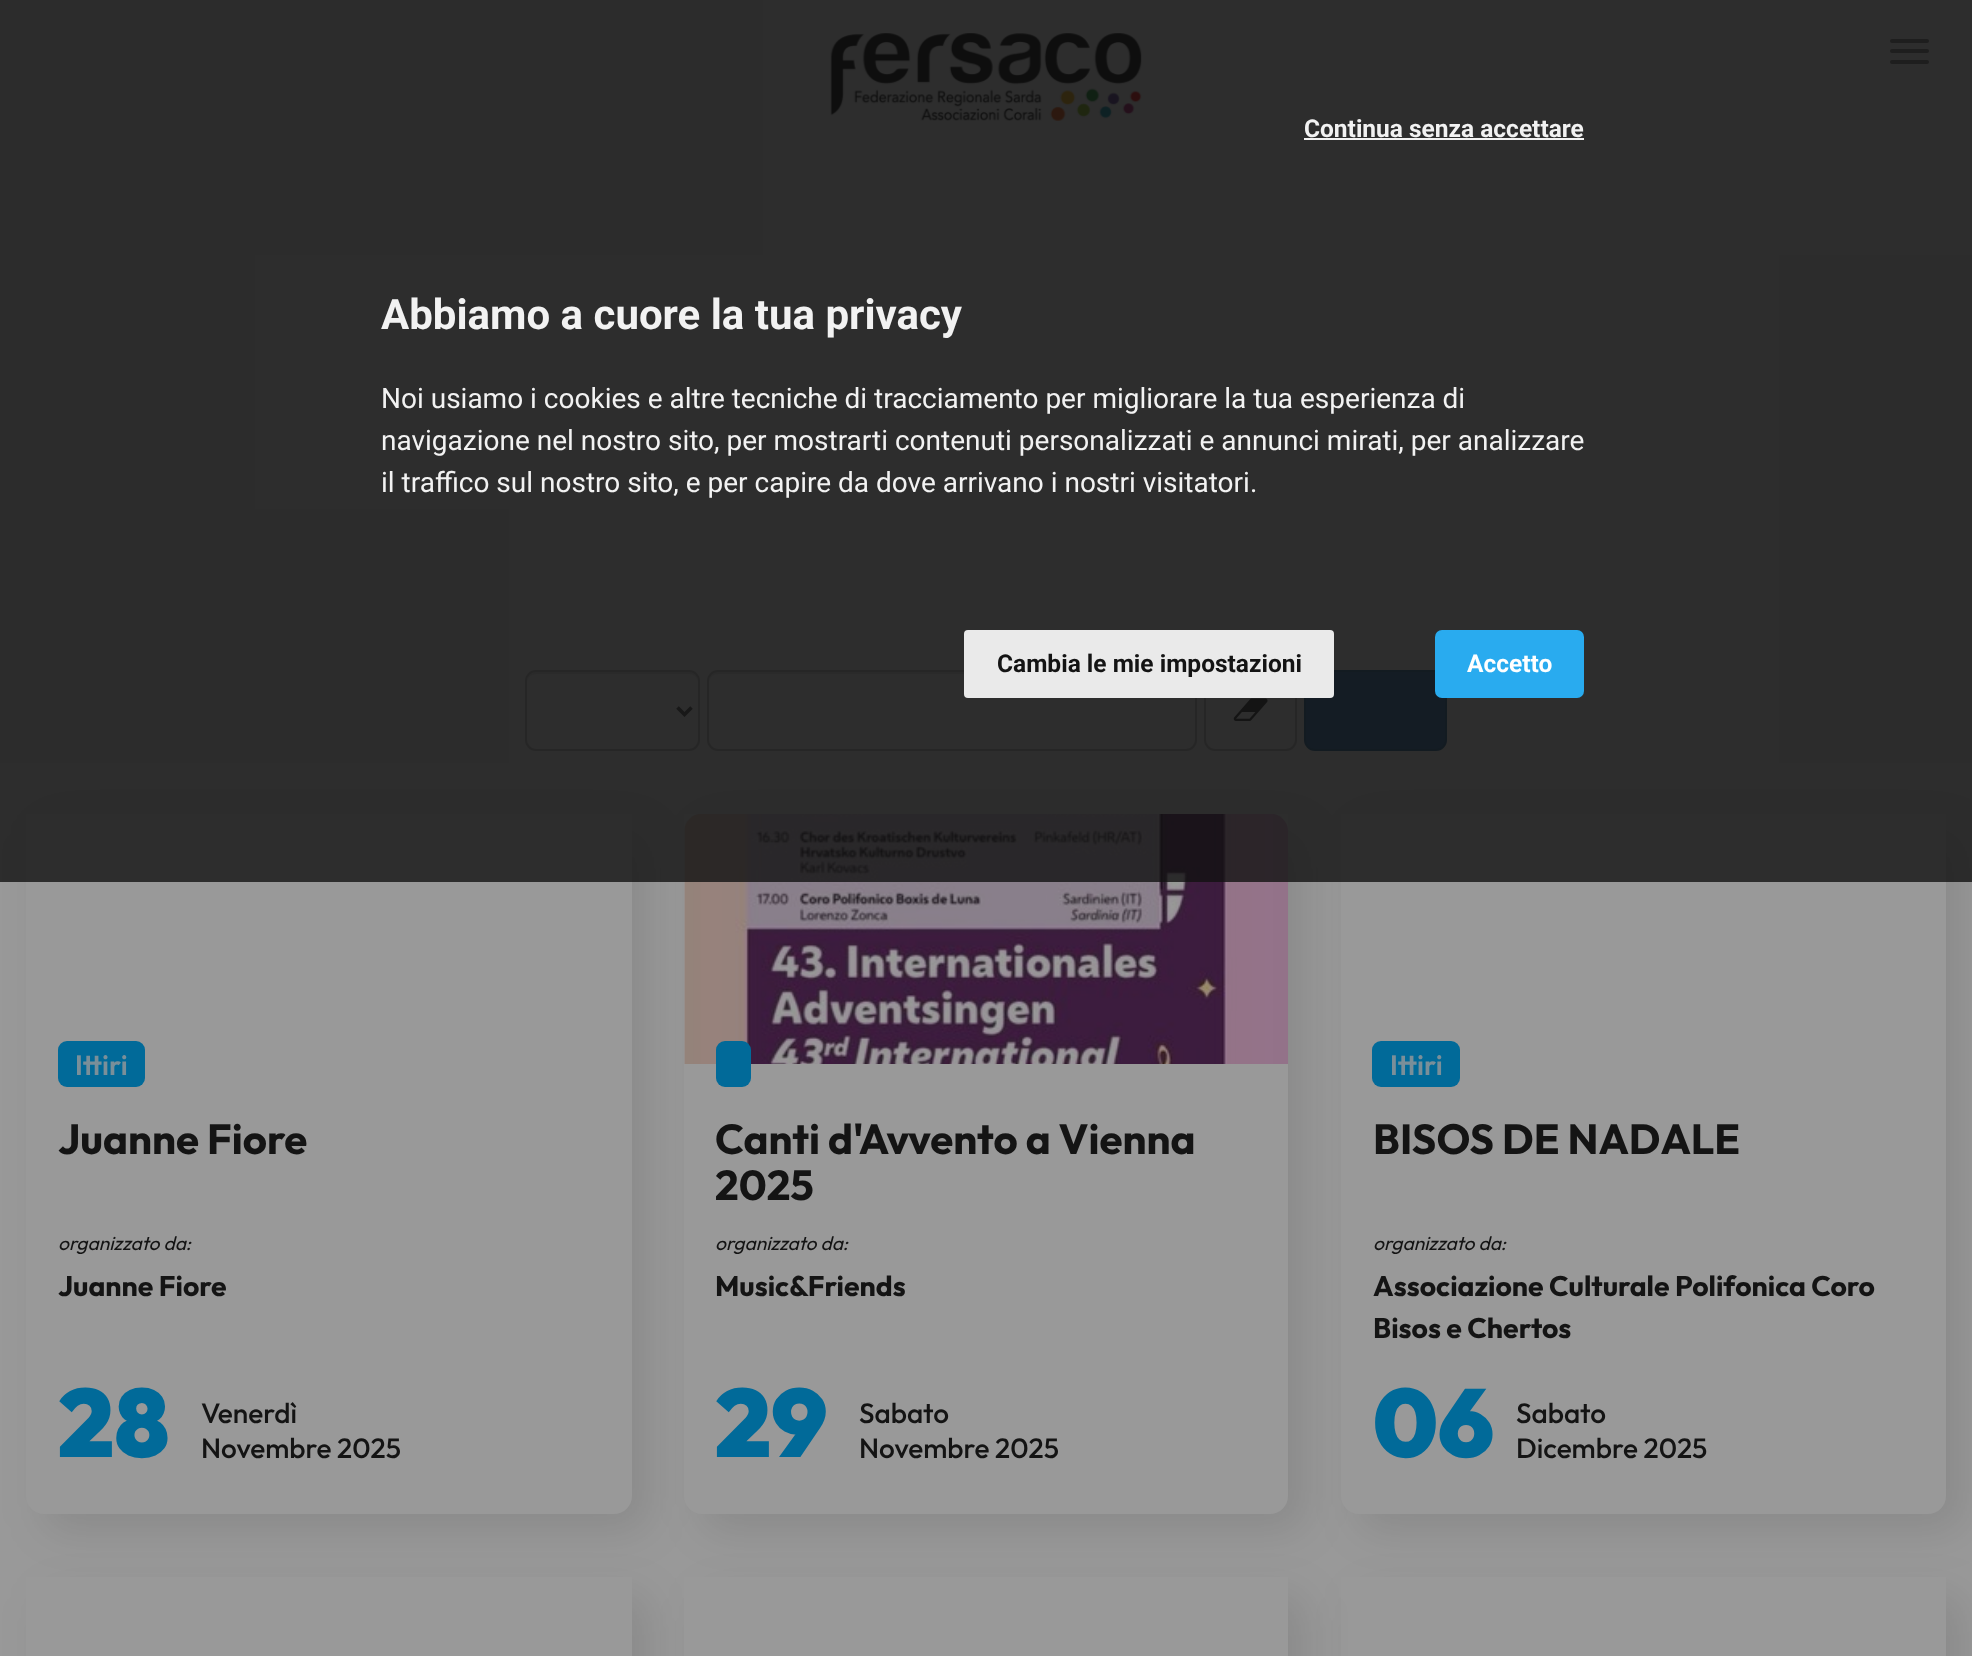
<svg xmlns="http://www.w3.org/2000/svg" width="1972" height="1656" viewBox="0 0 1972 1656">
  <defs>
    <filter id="blur1" x="-50%" y="-200%" width="200%" height="500%"><feGaussianBlur stdDeviation="22"/></filter>
    <clipPath id="clip1"><path d="M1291 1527H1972V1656H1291ZM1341 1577H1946V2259C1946 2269 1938 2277 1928 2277H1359C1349 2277 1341 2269 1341 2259Z" clip-rule="evenodd"/></clipPath>
  </defs>
  <rect width="100%" height="100%" fill="#999999"/>
  <image x="830" y="33" width="312" height="88" href="img1.png"/>
  <rect x="1890" y="39" width="39" height="4" rx="2" fill="#525252"/>
  <rect x="1890" y="49" width="39" height="4" rx="2" fill="#525252"/>
  <rect x="1890" y="60" width="39" height="4" rx="2" fill="#525252"/>
  <path d="M536 674H690C694 674 698 678 698 682C698 666 671 672 664 672H562C554 672 527 666 527 682C527 678 531 674 536 674Z" fill="#8e8e8e"/>
  <rect x="526" y="671" width="173" height="79" rx="10" fill="none" stroke="#7a7a7a" stroke-width="2"/>
  <path d="M677.5 707.5L684.5 714.5L691.5 707.5" fill="none" stroke="#333333" stroke-width="3.5"/>
  <path d="M718 674H1186C1191 674 1195 678 1195 682C1195 677 1192 672 1186 672H718C712 672 709 677 709 682C709 678 713 674 718 674Z" fill="#8e8e8e"/>
  <rect x="708" y="671" width="488" height="79" rx="10" fill="none" stroke="#7a7a7a" stroke-width="2"/>
  <rect x="1205" y="671" width="91" height="79" rx="10" fill="none" stroke="#7a7a7a" stroke-width="2"/>
  <image x="1233" y="698" width="35" height="23" href="img2.png"/>
  <rect x="1305" y="671" width="141" height="79" rx="10" fill="#1f496e" stroke="#1c4162" stroke-width="2"/>
  <rect x="44" y="831" width="605" height="700" rx="18" fill="#141414" fill-opacity="0.1" filter="url(#blur1)"/>
  <path d="M26 814H632V1496C632 1506 624 1514 614 1514H44C34 1514 26 1506 26 1496Z" fill="#999999"/>
  <rect x="702" y="831" width="604" height="700" rx="18" fill="#141414" fill-opacity="0.1" filter="url(#blur1)"/>
  <path d="M684 814H1288V1496C1288 1506 1280 1514 1270 1514H702C692 1514 684 1506 684 1496Z" fill="#999999"/>
  <image x="684" y="814" width="604" height="250" href="img3.png"/>
  <rect x="1358" y="831" width="606" height="700" rx="18" fill="#141414" fill-opacity="0.1" filter="url(#blur1)"/>
  <path d="M1341 814H1946V1496C1946 1506 1938 1514 1928 1514H1359C1349 1514 1341 1506 1341 1496Z" fill="#999999"/>
  <rect x="0" y="0" width="1972" height="882" fill="#111111" fill-opacity="0.8"/>
  <text x="381" y="329" font-family="Roboto" font-size="42" font-weight="bold" fill="#f2f2f2">Abbiamo a cuore la tua privacy</text>
  <text x="1304" y="137" font-family="Roboto" font-size="24.5" font-weight="bold" fill="#f2f2f2">Continua senza accettare</text>
  <rect x="1304" y="138" width="280" height="2" fill="#f2f2f2"/>
  <rect x="964" y="630" width="370" height="68" rx="4" fill="#eaeaea"/>
  <text x="997" y="672" font-family="Roboto" font-size="24.5" font-weight="bold" fill="#141414">Cambia le mie impostazioni</text>
  <rect x="1435" y="630" width="149" height="68" rx="7" fill="#29abef"/>
  <text x="1467" y="672" font-family="Roboto" font-size="24.5" font-weight="bold" fill="#ffffff">Accetto</text>
  <text x="381" y="408" font-family="Roboto" font-size="28" fill="#f2f2f2">Noi usiamo i cookies e altre tecniche di tracciamento per migliorare la tua esperienza di</text>
  <text x="381" y="450" font-family="Roboto" font-size="28" fill="#f2f2f2">navigazione nel nostro sito, per mostrarti contenuti personalizzati e annunci mirati, per analizzare</text>
  <text x="381" y="492" font-family="Roboto" font-size="28" fill="#f2f2f2">il traffico sul nostro sito, e per capire da dove arrivano i nostri visitatori.</text>
  <rect x="58" y="1041" width="87" height="46" rx="9" fill="#016a99"/>
  <text x="75" y="1075" font-family="Outfit" font-size="28" font-weight="600" fill="#7a8f99">Ittiri</text>
  <text x="58" y="1154" font-family="Outfit" font-size="42" font-weight="bold" fill="#141414">Juanne Fiore</text>
  <text x="58" y="1250" font-family="Outfit" font-size="19.25" font-style="italic" fill="#141414">organizzato da:</text>
  <text x="58" y="1296" font-family="Outfit" font-size="28.4" font-weight="bold" fill="#141414">Juanne Fiore</text>
  <text x="58" y="1457" font-family="Outfit" font-size="96" font-weight="900" fill="#016a99">28</text>
  <text x="201" y="1423" font-family="Outfit" font-size="28" font-weight="500" fill="#141414">Venerdì</text>
  <text x="201" y="1458" font-family="Outfit" font-size="28" font-weight="500" fill="#141414">Novembre 2025</text>
  <rect x="716" y="1041" width="35" height="46" rx="9" fill="#016a99"/>
  <text x="715" y="1154" font-family="Outfit" font-size="42" font-weight="bold" fill="#141414">Canti d'Avvento a Vienna</text>
  <text x="715" y="1200" font-family="Outfit" font-size="42" font-weight="bold" fill="#141414">2025</text>
  <text x="715" y="1250" font-family="Outfit" font-size="19.25" font-style="italic" fill="#141414">organizzato da:</text>
  <text x="715" y="1296" font-family="Outfit" font-size="28.4" font-weight="bold" fill="#141414">Music&amp;Friends</text>
  <text x="715" y="1457" font-family="Outfit" font-size="96" font-weight="900" fill="#016a99">29</text>
  <text x="859" y="1423" font-family="Outfit" font-size="28" font-weight="500" fill="#141414">Sabato</text>
  <text x="859" y="1458" font-family="Outfit" font-size="28" font-weight="500" fill="#141414">Novembre 2025</text>
  <rect x="1372" y="1041" width="88" height="46" rx="9" fill="#016a99"/>
  <text x="1390" y="1075" font-family="Outfit" font-size="28" font-weight="600" fill="#7a8f99">Ittiri</text>
  <text x="1373" y="1154" font-family="Outfit" font-size="42" font-weight="bold" fill="#141414">BISOS DE NADALE</text>
  <text x="1373" y="1250" font-family="Outfit" font-size="19.25" font-style="italic" fill="#141414">organizzato da:</text>
  <text x="1373" y="1296" font-family="Outfit" font-size="28.4" font-weight="bold" fill="#141414">Associazione Culturale Polifonica Coro</text>
  <text x="1373" y="1338" font-family="Outfit" font-size="28.4" font-weight="bold" fill="#141414">Bisos e Chertos</text>
  <text x="1373" y="1457" font-family="Outfit" font-size="96" font-weight="900" fill="#016a99">06</text>
  <text x="1516" y="1423" font-family="Outfit" font-size="28" font-weight="500" fill="#141414">Sabato</text>
  <text x="1516" y="1458" font-family="Outfit" font-size="28" font-weight="500" fill="#141414">Dicembre 2025</text>
  <rect x="44" y="1594" width="605" height="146" rx="18" fill="#141414" fill-opacity="0.1" filter="url(#blur1)"/>
  <rect x="26" y="1577" width="606" height="79" fill="#999999"/>
  <rect x="702" y="1594" width="604" height="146" rx="18" fill="#141414" fill-opacity="0.1" filter="url(#blur1)"/>
  <rect x="684" y="1577" width="604" height="79" fill="#999999"/>
  <g clip-path="url(#clip1)">
    <rect x="1358" y="1594" width="606" height="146" rx="18" fill="#141414" fill-opacity="0.1" filter="url(#blur1)"/>
  </g>
</svg>
